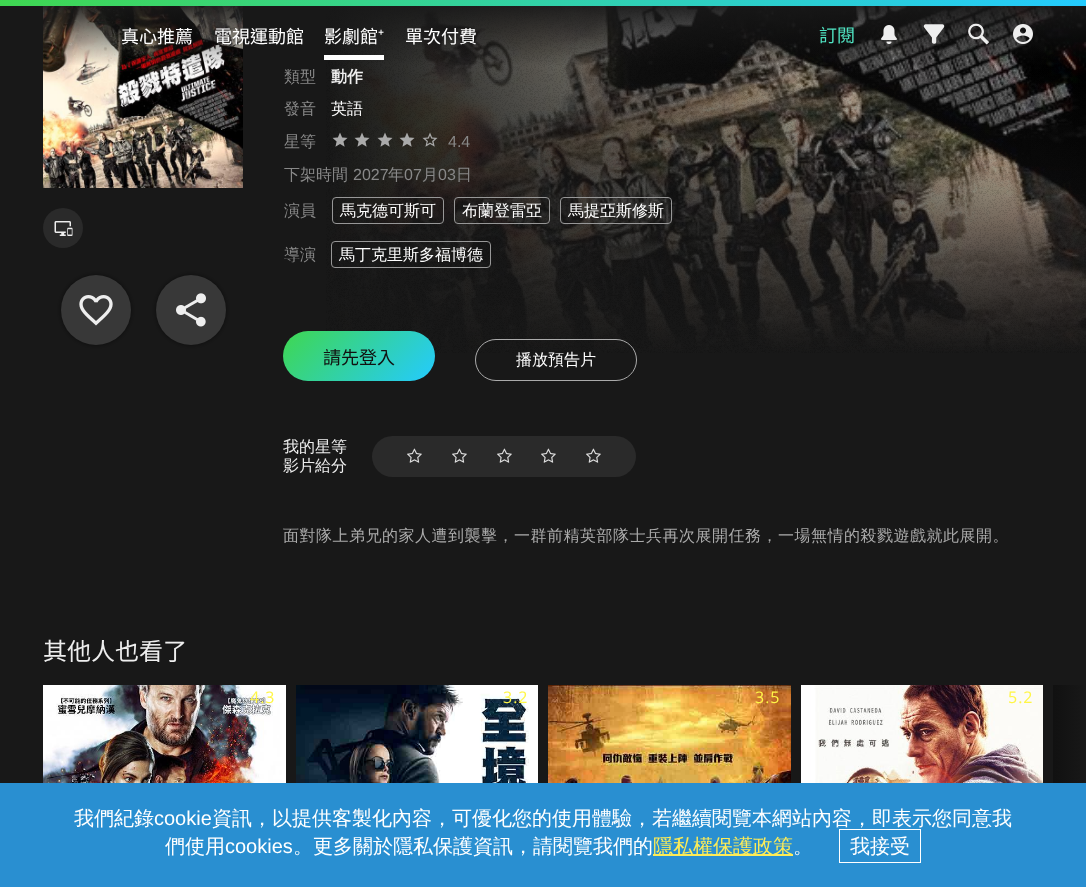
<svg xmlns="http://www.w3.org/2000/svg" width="1086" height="887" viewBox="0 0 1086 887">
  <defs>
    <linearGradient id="g1" gradientUnits="userSpaceOnUse" x1="543" y1="0" x2="543" y2="66"><stop offset="0" stop-color="#181818"/><stop offset="1" stop-color="#181818" stop-opacity="0"/></linearGradient>
    <linearGradient id="g2" gradientUnits="userSpaceOnUse" x1="267" y1="-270" x2="819" y2="276"><stop offset="0" stop-color="#3fd750"/><stop offset="1" stop-color="#24cbff"/></linearGradient>
    <filter id="blur1" x="-50%" y="-200%" width="200%" height="500%"><feGaussianBlur stdDeviation="2.5"/></filter>
    <linearGradient id="g3" gradientUnits="userSpaceOnUse" x1="308" y1="306" x2="410" y2="406"><stop offset="0" stop-color="#3fd750"/><stop offset="1" stop-color="#24cbff"/></linearGradient>
    <linearGradient id="g4" gradientUnits="userSpaceOnUse" x1="1043" y1="873" x2="1086" y2="873"><stop offset="0" stop-color="#181818" stop-opacity="0.6"/><stop offset="1" stop-color="#181818"/></linearGradient>
  </defs>
  <rect width="100%" height="100%" fill="#181818"/>
  <image x="330" y="6" width="756" height="345" href="img6.png"/>
  <image x="326" y="6" width="760" height="347" href="img5.png"/>
  <image x="43" y="6" width="200" height="182" href="img7.png"/>
  <rect x="43" y="6" width="1043" height="59" fill="url(#g1)"/>
  <rect x="0" y="0" width="1086" height="6" fill="url(#g2)"/>
  <text x="121" y="43" font-family="Noto Sans TC" font-size="18" font-weight="100" fill="#ffffff">真心推薦</text>
  <text x="214" y="43" font-family="Noto Sans TC" font-size="18" font-weight="100" fill="#ffffff">電視運動館</text>
  <rect x="324" y="55" width="60" height="5" fill="#ffffff"/>
  <text x="324" y="43" font-family="Noto Sans TC" font-size="18" font-weight="100" fill="#ffffff">影劇館</text>
  <text x="378" y="43" font-family="Noto Sans" font-size="18" fill="#ffffff">⁺</text>
  <text x="405" y="43" font-family="Noto Sans TC" font-size="18" font-weight="100" fill="#ffffff">單次付費</text>
  <text x="819" y="42" font-family="Noto Sans TC" font-size="18" font-weight="100" fill="#50e3c2">訂閱</text>
  <image x="881" y="25" width="16" height="19" href="img1.png"/>
  <image x="923" y="24" width="22" height="20" href="img2.png"/>
  <image x="968" y="23" width="21" height="22" href="img3.png"/>
  <image x="1013" y="24" width="20" height="20" href="img4.png"/>
  <circle cx="63" cy="228" r="20" fill="#2a2a2a"/>
  <image x="54" y="221" width="19" height="15" href="img8.png"/>
  <rect x="61" y="275" width="70" height="70" rx="35" fill="#000000" fill-opacity="0.5" filter="url(#blur1)"/>
  <circle cx="96" cy="310" r="35" fill="#383838"/>
  <image x="79" y="295" width="34" height="31" href="img9.png"/>
  <rect x="156" y="275" width="70" height="70" rx="35" fill="#000000" fill-opacity="0.5" filter="url(#blur1)"/>
  <circle cx="191" cy="310" r="35" fill="#383838"/>
  <image x="176" y="293" width="30" height="34" href="img10.png"/>
  <text x="284" y="82" font-family="WenQuanYi Zen Hei" font-size="16" font-weight="500" fill="#888888">類型</text>
  <text x="331" y="82" font-family="WenQuanYi Zen Hei" font-size="16" font-weight="bold" fill="#eeeeee">動作</text>
  <text x="284" y="114" font-family="WenQuanYi Zen Hei" font-size="16" font-weight="500" fill="#888888">發音</text>
  <text x="331" y="114" font-family="WenQuanYi Zen Hei" font-size="16" font-weight="500" fill="#ffffff">英語</text>
  <text x="284" y="147" font-family="WenQuanYi Zen Hei" font-size="16" font-weight="500" fill="#888888">星等</text>
  <image x="332" y="132" width="16" height="15" href="img11.png"/>
  <image x="354" y="132" width="16" height="15" href="img12.png"/>
  <image x="377" y="132" width="16" height="15" href="img13.png"/>
  <image x="399" y="132" width="16" height="15" href="img14.png"/>
  <image x="422" y="132" width="16" height="15" href="img15.png"/>
  <text x="448" y="147" font-family="Liberation Sans" font-size="16" fill="#888888">4.4</text>
  <text x="284" y="180" font-family="WenQuanYi Zen Hei" font-size="16" font-weight="500" fill="#888888">下架時間</text>
  <text x="353" y="180" font-family="Liberation Sans" font-size="16" fill="#888888">2027</text>
  <text x="388" y="180" font-family="WenQuanYi Zen Hei" font-size="16" font-weight="500" fill="#888888">年</text>
  <text x="404" y="180" font-family="Liberation Sans" font-size="16" fill="#888888">07</text>
  <text x="422" y="180" font-family="WenQuanYi Zen Hei" font-size="16" font-weight="500" fill="#888888">月</text>
  <text x="438" y="180" font-family="Liberation Sans" font-size="16" fill="#888888">03</text>
  <text x="456" y="180" font-family="WenQuanYi Zen Hei" font-size="16" font-weight="500" fill="#888888">日</text>
  <text x="284" y="216" font-family="WenQuanYi Zen Hei" font-size="16" font-weight="500" fill="#888888">演員</text>
  <rect x="332.5" y="197.5" width="111" height="26" rx="3.5" fill="none" stroke="#979797"/>
  <text x="340" y="216" font-family="WenQuanYi Zen Hei" font-size="16" font-weight="500" fill="#ffffff">馬克德可斯可</text>
  <rect x="454.5" y="197.5" width="95" height="26" rx="3.5" fill="none" stroke="#979797"/>
  <text x="462" y="216" font-family="WenQuanYi Zen Hei" font-size="16" font-weight="500" fill="#ffffff">布蘭登雷亞</text>
  <rect x="560.5" y="197.5" width="111" height="26" rx="3.5" fill="none" stroke="#979797"/>
  <text x="568" y="216" font-family="WenQuanYi Zen Hei" font-size="16" font-weight="500" fill="#ffffff">馬提亞斯修斯</text>
  <text x="284" y="260" font-family="WenQuanYi Zen Hei" font-size="16" font-weight="500" fill="#888888">導演</text>
  <rect x="331.5" y="241.5" width="159" height="26" rx="3.5" fill="none" stroke="#979797"/>
  <text x="339" y="260" font-family="WenQuanYi Zen Hei" font-size="16" font-weight="500" fill="#ffffff">馬丁克里斯多福博德</text>
  <rect x="283" y="331" width="152" height="50" rx="25" fill="url(#g3)"/>
  <text x="323" y="364" font-family="Noto Sans TC" font-size="18" font-weight="100" fill="#111111">請先登入</text>
  <rect x="475.5" y="339.5" width="161" height="41" rx="20.5" fill="none" stroke="#aaaaaa"/>
  <text x="516" y="365" font-family="WenQuanYi Zen Hei" font-size="16" font-weight="500" fill="#ffffff">播放預告片</text>
  <text x="283" y="452" font-family="WenQuanYi Zen Hei" font-size="16" font-weight="500" fill="#eeeeee">我的星等</text>
  <text x="283" y="471" font-family="WenQuanYi Zen Hei" font-size="16" font-weight="500" fill="#eeeeee">影片給分</text>
  <rect x="372" y="436" width="264" height="41" rx="20.5" fill="#2a2a2a"/>
  <image x="407" y="448" width="15" height="15" href="img16.png"/>
  <image x="452" y="448" width="15" height="15" href="img16.png"/>
  <image x="497" y="448" width="15" height="15" href="img16.png"/>
  <image x="541" y="448" width="15" height="15" href="img16.png"/>
  <image x="586" y="448" width="15" height="15" href="img16.png"/>
  <text x="283" y="541" font-family="WenQuanYi Zen Hei" font-size="16" font-weight="500" letter-spacing="0.5" fill="#aaaaaa">面對隊上弟兄的家人遭到襲擊，一群前精英部隊士兵再次展開任務，一場無情的殺戮遊戲就此展開。</text>
  <text x="43" y="660" font-family="Noto Sans TC" font-size="24" font-weight="100" fill="#eeeeee">其他人也看了</text>
  <image x="43" y="685" width="243" height="98" href="img17.png"/>
  <text x="250" y="703" font-family="Open Sans" font-size="16" letter-spacing="1" fill="#fff646">4.3</text>
  <image x="296" y="685" width="242" height="98" href="img18.png"/>
  <text x="503" y="703" font-family="Open Sans" font-size="16" letter-spacing="1" fill="#fff646">3.2</text>
  <image x="548" y="685" width="243" height="98" href="img19.png"/>
  <text x="755" y="703" font-family="Open Sans" font-size="16" letter-spacing="1" fill="#fff646">3.5</text>
  <image x="801" y="685" width="242" height="98" href="img20.png"/>
  <text x="1008" y="703" font-family="Open Sans" font-size="16" letter-spacing="1" fill="#fff646">5.2</text>
  <rect x="1053" y="685" width="32" height="98" fill="#000000"/>
  <rect x="1053" y="685" width="32" height="98" fill="url(#g4)"/>
  <rect x="0" y="783" width="1086" height="104" fill="#298fd1"/>
  <text x="74" y="825" font-family="WenQuanYi Zen Hei" font-size="20" font-weight="500" fill="#ffffff">我們紀錄</text>
  <text x="154" y="825" font-family="Liberation Sans" font-size="20" fill="#ffffff">cookie</text>
  <text x="212" y="825" font-family="WenQuanYi Zen Hei" font-size="20" font-weight="500" fill="#ffffff">資訊，以提供客製化內容，可優化您的使用體驗，若繼續閱覽本網站內容，即表示您同意我</text>
  <text x="165" y="853" font-family="WenQuanYi Zen Hei" font-size="20" font-weight="500" fill="#ffffff">們使用</text>
  <text x="225" y="853" font-family="Liberation Sans" font-size="20" fill="#ffffff">cookies</text>
  <text x="293" y="853" font-family="WenQuanYi Zen Hei" font-size="20" font-weight="500" fill="#ffffff">。更多關於隱私保護資訊，請閱覽我們的</text>
  <rect x="653" y="854" width="140" height="2" fill="#fdec57"/>
  <text x="653" y="853" font-family="WenQuanYi Zen Hei" font-size="20" font-weight="500" fill="#fdec57">隱私權保護政策</text>
  <text x="793" y="853" font-family="WenQuanYi Zen Hei" font-size="20" font-weight="500" fill="#ffffff">。</text>
  <rect x="839.5" y="829.5" width="81" height="33" fill="none" stroke="#ffffff"/>
  <text x="850" y="853" font-family="WenQuanYi Zen Hei" font-size="20" font-weight="500" fill="#ffffff">我接受</text>
</svg>
